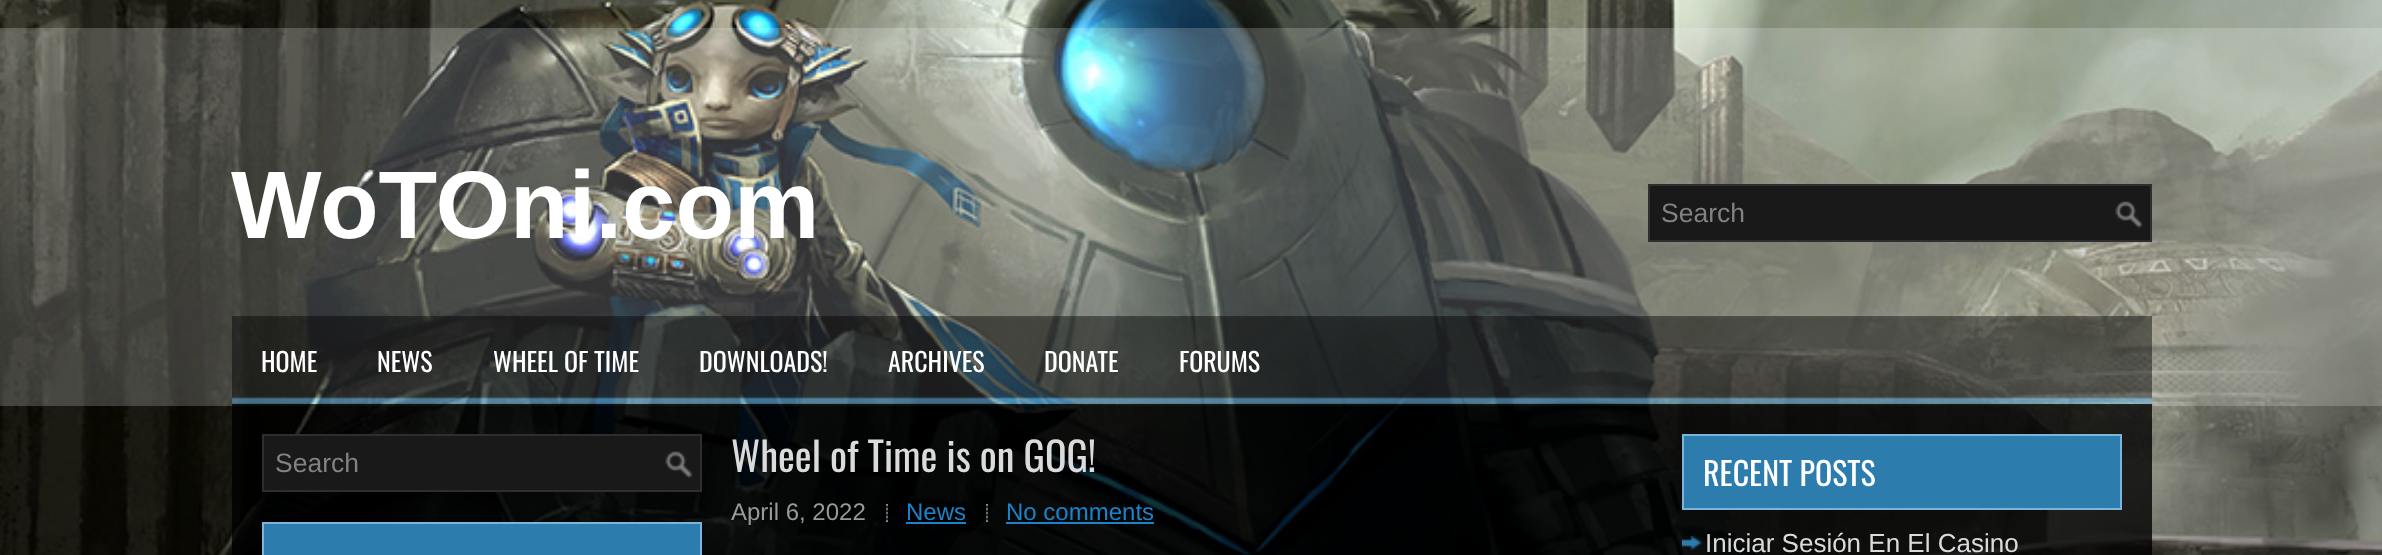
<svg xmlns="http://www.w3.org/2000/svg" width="2382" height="555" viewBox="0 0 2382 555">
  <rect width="100%" height="100%" fill="#ffffff"/>
  <image x="0" y="0" width="2382" height="555" href="img1.png"/>
  <rect x="0" y="28" width="2382" height="378" fill="#ffffff" fill-opacity="0.2"/>
  <text x="231" y="238" font-family="Liberation Sans" font-size="96" font-weight="bold" fill="#ffffff">WoTOni.com</text>
  <rect x="1650" y="186" width="500" height="54" fill="#191919"/>
  <image x="2115" y="201" width="28" height="28" href="img2.png"/>
  <rect x="1649" y="185" width="502" height="56" fill="none" stroke="#2e2e2e" stroke-width="2"/>
  <text x="1661" y="222" font-family="Liberation Sans" font-size="26.5" fill="#828282">Search</text>
  <image x="232" y="316" width="1920" height="88" href="img3.png"/>
  <text x="261" y="372" font-family="Oswald" font-size="26" fill="#ffffff">HOME</text>
  <text x="377" y="372" font-family="Oswald" font-size="26" fill="#ffffff">NEWS</text>
  <text x="493" y="372" font-family="Oswald" font-size="26" fill="#ffffff">WHEEL OF TIME</text>
  <text x="699" y="372" font-family="Oswald" font-size="26" fill="#ffffff">DOWNLOADS!</text>
  <text x="888" y="372" font-family="Oswald" font-size="26" fill="#ffffff">ARCHIVES</text>
  <text x="1044" y="372" font-family="Oswald" font-size="26" fill="#ffffff">DONATE</text>
  <text x="1179" y="372" font-family="Oswald" font-size="26" fill="#ffffff">FORUMS</text>
  <rect x="232" y="404" width="1920" height="151" fill="#000000" fill-opacity="0.8"/>
  <rect x="264" y="436" width="436" height="54" fill="#191919"/>
  <image x="665" y="451" width="28" height="28" href="img2.png"/>
  <rect x="263" y="435" width="438" height="56" fill="none" stroke="#2e2e2e" stroke-width="2"/>
  <text x="275" y="472" font-family="Liberation Sans" font-size="26.5" fill="#828282">Search</text>
  <rect x="263" y="523" width="438" height="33" fill="#2c7cae" stroke="#7cb4dc" stroke-width="2"/>
  <text x="731" y="472" font-family="Oswald" font-size="40" fill="#dbdbdb">Wheel of Time is on GOG!</text>
  <text x="731" y="520" font-family="Liberation Sans" font-size="24" fill="#999999">April 6, 2022</text>
  <image x="886" y="504" width="2" height="18" href="img4.png"/>
  <text x="906" y="520" font-family="Liberation Sans" font-size="24" fill="#1a83cc">News</text>
  <rect x="906" y="522" width="60" height="2" fill="#1a83cc"/>
  <image x="986" y="504" width="2" height="18" href="img5.png"/>
  <text x="1006" y="520" font-family="Liberation Sans" font-size="24" fill="#1a83cc">No comments</text>
  <rect x="1006" y="522" width="148" height="2" fill="#1a83cc"/>
  <rect x="1683" y="435" width="438" height="74" fill="#2c7cae" stroke="#7cb4dc" stroke-width="2"/>
  <text x="1703" y="486" font-family="Oswald" font-size="32" fill="#ffffff">RECENT POSTS</text>
  <image x="1682" y="536" width="20" height="14" href="img6.png"/>
  <text x="1705" y="552" font-family="Liberation Sans" font-size="26" fill="#dbdbdb">Iniciar Sesión En El Casino</text>
</svg>
